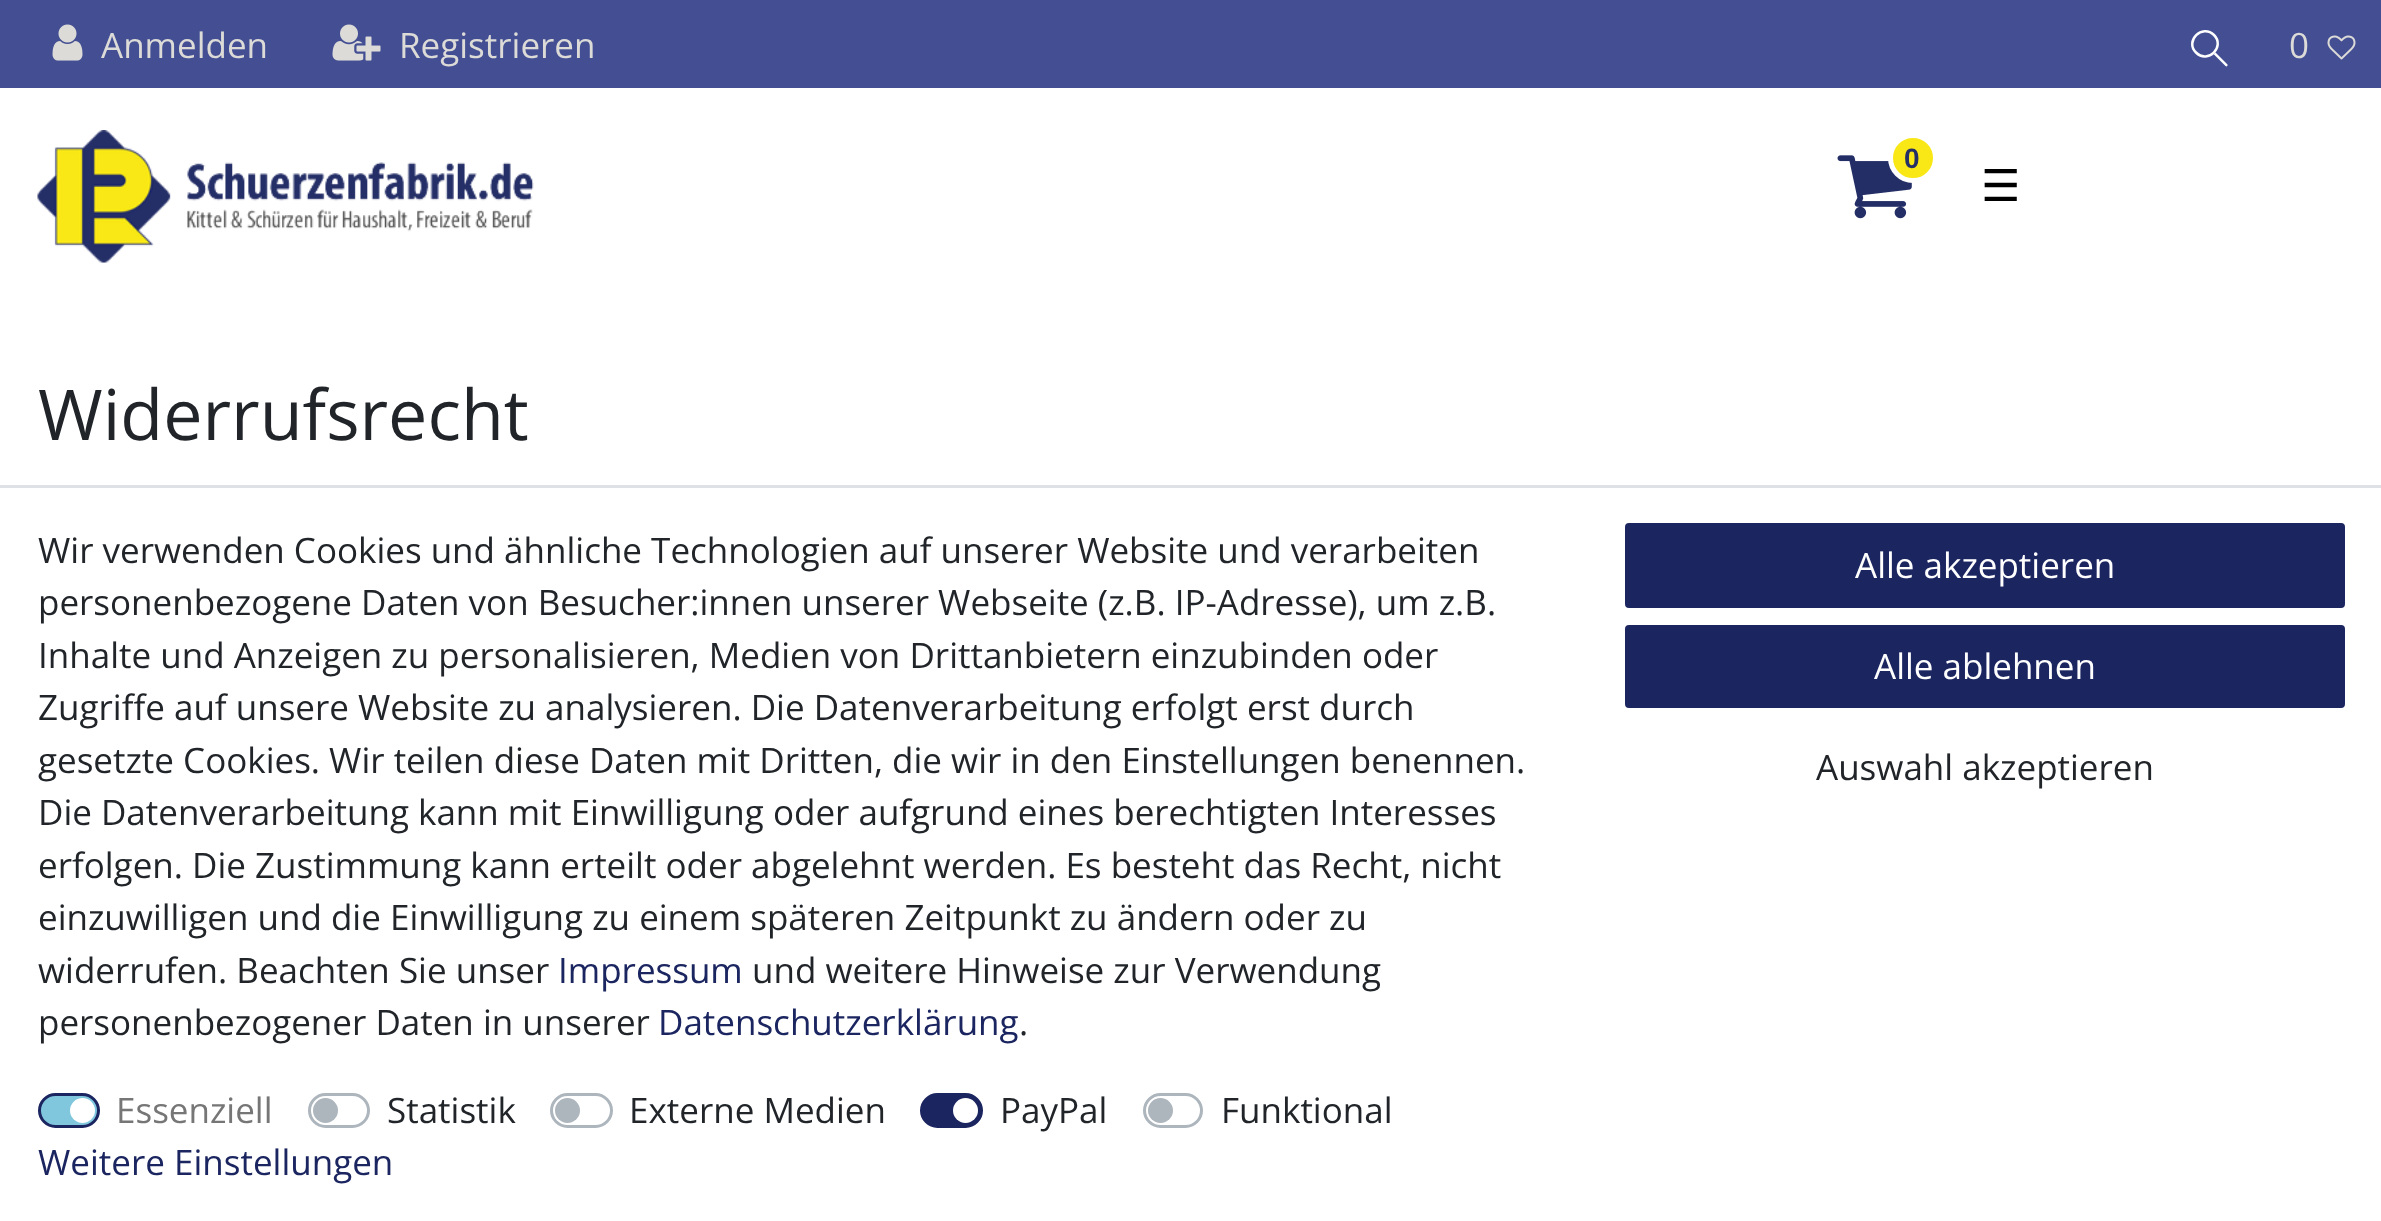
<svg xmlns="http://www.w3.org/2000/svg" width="2381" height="1221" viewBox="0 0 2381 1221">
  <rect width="100%" height="100%" fill="#ffffff"/>
  <rect x="0" y="0" width="2381" height="88" fill="#434f92"/>
  <image x="52" y="24" width="31" height="37" href="img1.png"/>
  <text x="101" y="58" font-family="Open Sans" font-size="35" fill="#dcdbd8">Anmelden</text>
  <image x="332" y="24" width="49" height="37" href="img2.png"/>
  <text x="399" y="58" font-family="Open Sans" font-size="35" fill="#dcdbd8">Registrieren</text>
  <path d="M2225.5 66L2200.5 41V40C2200.5 39 2201.5 39 2202 39L2227.5 64.5C2228 66 2226.5 67 2225.5 66Z" fill="#ffffff"/>
  <path d="M2195.5 53.5C2182.5 40.5 2202 21.5 2214.5 34C2227.5 47 2208 66.5 2195.5 53.5Z" fill="#434f92"/>
  <path d="M2196 52.5C2184.5 41 2202 23.5 2214 35C2225.5 46.5 2208 64.5 2196 52.5Z" fill="none" stroke="#ffffff" stroke-width="2.5"/>
  <text x="2289" y="58" font-family="Open Sans" font-size="35" fill="#dcdbd8">0</text>
  <image x="2327" y="35" width="29" height="25" href="img3.png"/>
  <image x="1837" y="155" width="75" height="64" href="img4.png"/>
  <circle cx="1913" cy="158" r="22.5" fill="#f9e716" stroke="#ffffff" stroke-width="5"/>
  <text x="1904" y="168" font-family="Liberation Sans" font-size="28" font-weight="bold" fill="#242e67">0</text>
  <image x="37" y="130" width="497" height="133" href="img5.png"/>
  <text x="1981" y="201" font-family="DejaVu Sans" font-size="44" fill="#000000">☰</text>
  <text x="38" y="440" font-family="Open Sans" font-size="70" fill="#212529">Widerrufsrecht</text>
  <rect x="0" y="485" width="2381" height="3" fill="#dee2e6"/>
  <text x="38" y="563" font-family="Open Sans" font-size="35" fill="#212529">Wir verwenden Cookies und ähnliche Technologien auf unserer Website und verarbeiten</text>
  <text x="38" y="615" font-family="Open Sans" font-size="35" fill="#212529">personenbezogene Daten von Besucher:innen unserer Webseite (z.B. IP-Adresse), um z.B.</text>
  <text x="38" y="668" font-family="Open Sans" font-size="35" fill="#212529">Inhalte und Anzeigen zu personalisieren, Medien von Drittanbietern einzubinden oder</text>
  <text x="38" y="720" font-family="Open Sans" font-size="35" fill="#212529">Zugriffe auf unsere Website zu analysieren. Die Datenverarbeitung erfolgt erst durch</text>
  <text x="38" y="773" font-family="Open Sans" font-size="35" fill="#212529">gesetzte Cookies. Wir teilen diese Daten mit Dritten, die wir in den Einstellungen benennen.</text>
  <text x="38" y="825" font-family="Open Sans" font-size="35" fill="#212529">Die Datenverarbeitung kann mit Einwilligung oder aufgrund eines berechtigten Interesses</text>
  <text x="38" y="878" font-family="Open Sans" font-size="35" fill="#212529">erfolgen. Die Zustimmung kann erteilt oder abgelehnt werden. Es besteht das Recht, nicht</text>
  <text x="38" y="930" font-family="Open Sans" font-size="35" fill="#212529">einzuwilligen und die Einwilligung zu einem späteren Zeitpunkt zu ändern oder zu</text>
  <text x="38" y="983" font-family="Open Sans" font-size="35" fill="#212529">widerrufen. Beachten Sie unser</text>
  <text x="558" y="983" font-family="Open Sans" font-size="35" fill="#1b2560">Impressum</text>
  <text x="752" y="983" font-family="Open Sans" font-size="35" fill="#212529">und weitere Hinweise zur Verwendung</text>
  <text x="38" y="1035" font-family="Open Sans" font-size="35" fill="#212529">personenbezogener Daten in unserer</text>
  <text x="658" y="1035" font-family="Open Sans" font-size="35" fill="#1b2560">Datenschutzerklärung</text>
  <text x="1019" y="1035" font-family="Open Sans" font-size="35" fill="#212529">.</text>
  <rect x="39.5" y="1094.5" width="59" height="32" rx="16" fill="#80c7de" stroke="#1b2560" stroke-width="3"/>
  <text x="116" y="1123" font-family="Open Sans" font-size="35" fill="#767676">Essenziell</text>
  <circle cx="82.5" cy="1110.5" r="12.5" fill="#ffffff"/>
  <rect x="309.5" y="1094.5" width="59" height="32" rx="16" fill="none" stroke="#adb5bd" stroke-width="3"/>
  <text x="387" y="1123" font-family="Open Sans" font-size="35" fill="#212529">Statistik</text>
  <circle cx="325.5" cy="1110.5" r="12.5" fill="#adb5bd"/>
  <rect x="551.5" y="1094.5" width="60" height="32" rx="16" fill="none" stroke="#adb5bd" stroke-width="3"/>
  <text x="629" y="1123" font-family="Open Sans" font-size="35" fill="#212529">Externe Medien</text>
  <circle cx="567.5" cy="1110.5" r="12.5" fill="#adb5bd"/>
  <rect x="921.5" y="1094.5" width="60" height="32" rx="16" fill="#1b2560" stroke="#1b2560" stroke-width="3"/>
  <text x="1000" y="1123" font-family="Open Sans" font-size="35" fill="#212529">PayPal</text>
  <circle cx="965.5" cy="1110.5" r="12.5" fill="#ffffff"/>
  <rect x="1144.5" y="1094.5" width="57" height="32" rx="16" fill="none" stroke="#adb5bd" stroke-width="3"/>
  <text x="1221" y="1123" font-family="Open Sans" font-size="35" fill="#212529">Funktional</text>
  <circle cx="1160.5" cy="1110.5" r="12.5" fill="#adb5bd"/>
  <text x="38" y="1175" font-family="Open Sans" font-size="35" fill="#1b2560">Weitere Einstellungen</text>
  <rect x="1626.5" y="524.5" width="717" height="82" rx="2.5" fill="#1b2560" stroke="#1b2560" stroke-width="3"/>
  <text x="1855" y="578" font-family="Open Sans" font-size="35" fill="#ffffff">Alle akzeptieren</text>
  <rect x="1626.5" y="626.5" width="717" height="80" rx="2.5" fill="#1b2560" stroke="#1b2560" stroke-width="3"/>
  <text x="1874" y="679" font-family="Open Sans" font-size="35" fill="#ffffff">Alle ablehnen</text>
  <text x="1816" y="780" font-family="Open Sans" font-size="35" fill="#212529">Auswahl akzeptieren</text>
</svg>
